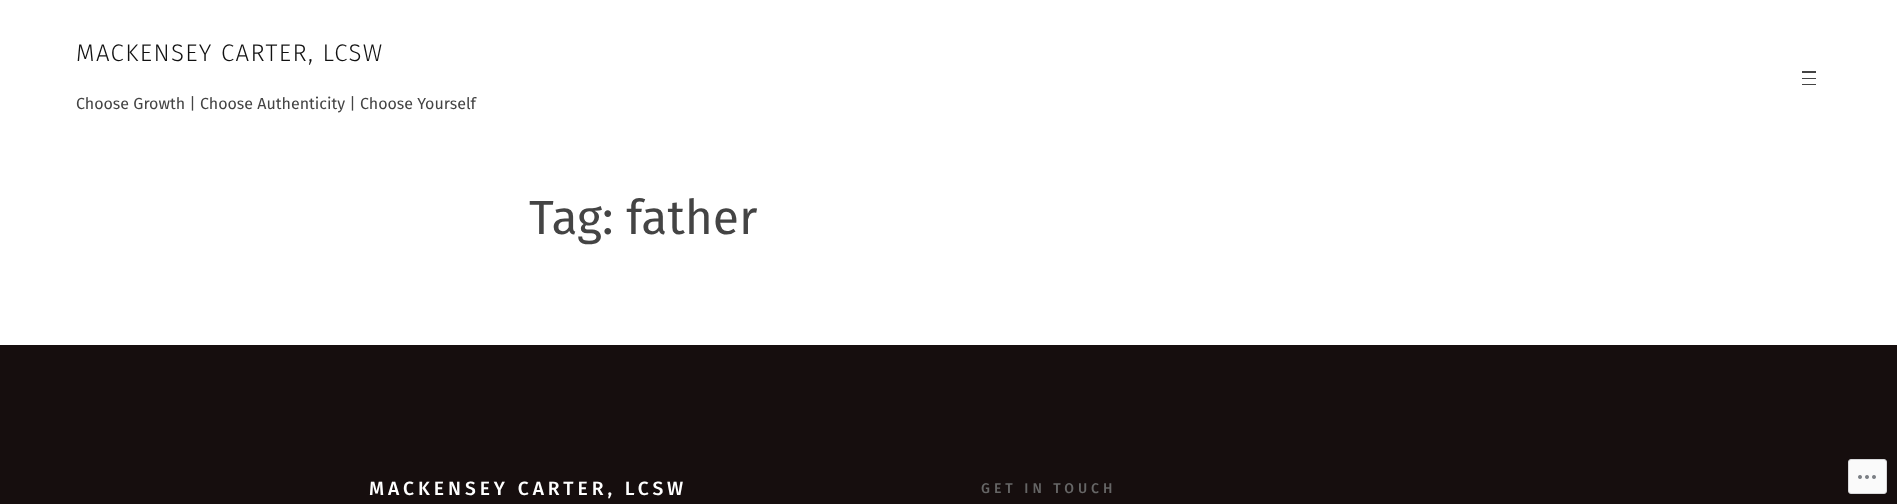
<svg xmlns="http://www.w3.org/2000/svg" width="1897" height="504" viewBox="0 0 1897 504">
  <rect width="100%" height="100%" fill="#ffffff"/>
  <text x="76" y="61" font-family="Fira Sans" font-size="24" font-weight="300" letter-spacing="1.4" fill="#111111">MACKENSEY CARTER, LCSW</text>
  <text x="76" y="109" font-family="Fira Sans" font-size="16" fill="#444444">Choose Growth | Choose Authenticity | Choose Yourself</text>
  <rect x="1802" y="71" width="14" height="2" fill="#444444"/>
  <rect x="1802" y="78" width="14" height="1" fill="#444444"/>
  <rect x="1802" y="84" width="14" height="1" fill="#444444"/>
  <text x="529" y="234" font-family="Fira Sans" font-size="48" fill="#444444">Tag: father</text>
  <rect x="0" y="345" width="1897" height="159" fill="#160e0e"/>
  <text x="369" y="495" font-family="Fira Sans" font-size="19.25" font-weight="500" letter-spacing="4" fill="#ffffff">MACKENSEY CARTER, LCSW</text>
  <text x="981" y="493" font-family="Fira Sans" font-size="14" font-weight="500" letter-spacing="4" fill="#666666">GET IN TOUCH</text>
  <rect x="1848.5" y="459.5" width="38" height="34" rx="2.5" fill="#fafafa" stroke="#d8d8da"/>
  <image x="1858" y="475" width="18" height="4" href="img1.png"/>
</svg>
